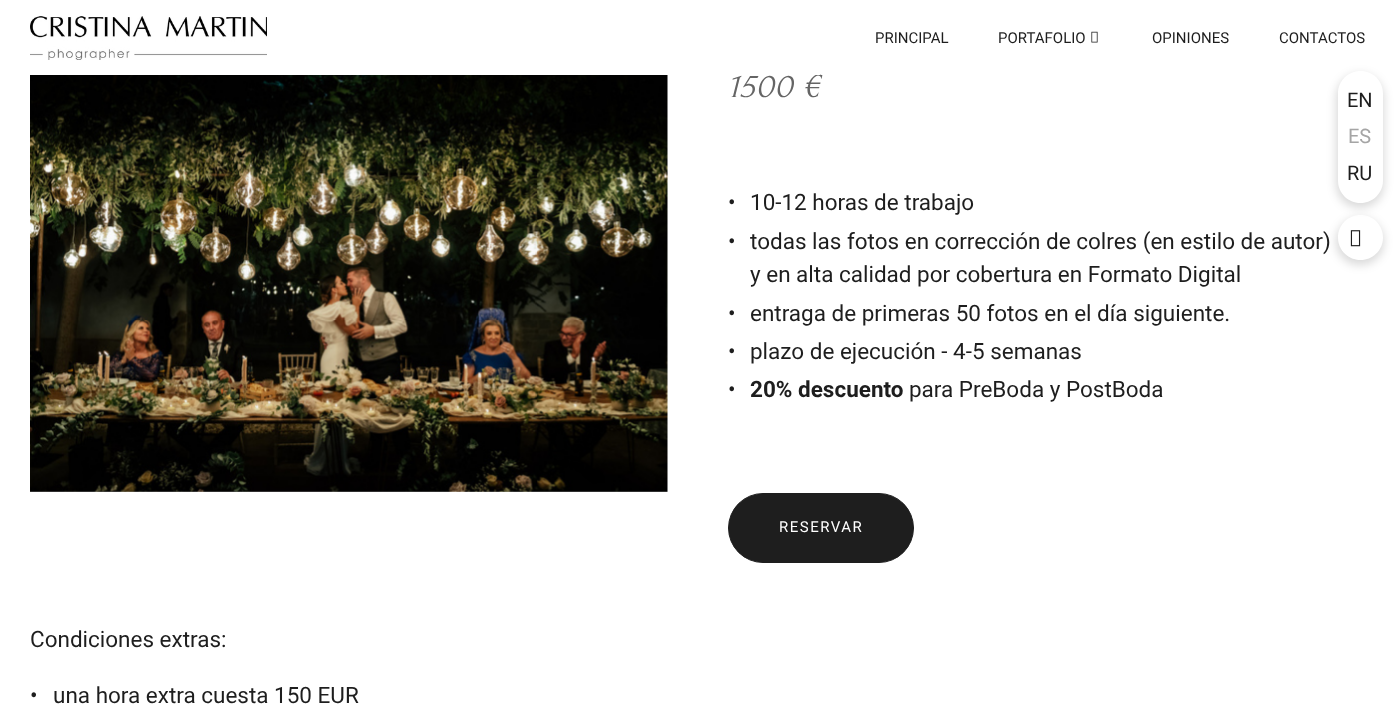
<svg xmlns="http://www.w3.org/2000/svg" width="1394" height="708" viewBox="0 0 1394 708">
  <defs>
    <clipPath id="clip1"><path d="M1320 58H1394V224H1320ZM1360.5 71C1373 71 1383 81 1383 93.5V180.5C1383 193 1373 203 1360.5 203C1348 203 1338 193 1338 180.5V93.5C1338 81 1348 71 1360.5 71Z" clip-rule="evenodd"/></clipPath>
    <filter id="blur1" x="-50%" y="-200%" width="200%" height="500%"><feGaussianBlur stdDeviation="5"/></filter>
    <clipPath id="clip2"><path d="M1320 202H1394V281H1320ZM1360.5 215C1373 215 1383 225 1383 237.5C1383 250 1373 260 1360.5 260C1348 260 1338 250 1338 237.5C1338 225 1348 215 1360.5 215Z" clip-rule="evenodd"/></clipPath>
  </defs>
  <rect width="100%" height="100%" fill="#ffffff"/>
  <text x="728" y="97" font-family="Forum" font-size="34" font-style="italic" letter-spacing="0.75" fill="#656565">1500 €</text>
  <rect x="814" y="74" width="6" height="1" fill="#ffffff"/>
  <image x="30" y="16" width="237" height="44" href="img1.png"/>
  <text x="875" y="43" font-family="Roboto" font-size="15" fill="#1e1e1e">PRINCIPAL</text>
  <text x="998" y="43" font-family="Roboto" font-size="15" fill="#1e1e1e">PORTAFOLIO</text>
  <image x="1091" y="31" width="7" height="12" href="img2.png"/>
  <text x="1152" y="43" font-family="Roboto" font-size="15" fill="#1e1e1e">OPINIONES</text>
  <text x="1279" y="43" font-family="Roboto" font-size="15" fill="#1e1e1e">CONTACTOS</text>
  <image x="30" y="75" width="638" height="417" href="img3.png"/>
  <text x="728" y="210" font-family="Roboto" font-size="22.5" fill="#1e1e1e">•</text>
  <text x="750" y="210" font-family="Roboto" font-size="22.5" fill="#1e1e1e">10-12 horas de trabajo</text>
  <text x="728" y="249" font-family="Roboto" font-size="22.5" fill="#1e1e1e">•</text>
  <text x="750" y="249" font-family="Roboto" font-size="22.5" fill="#1e1e1e">todas las fotos en corrección de colres (en estilo de autor)</text>
  <text x="750" y="282" font-family="Roboto" font-size="22.5" fill="#1e1e1e">y en alta calidad por cobertura en Formato Digital</text>
  <text x="728" y="321" font-family="Roboto" font-size="22.5" fill="#1e1e1e">•</text>
  <text x="750" y="321" font-family="Roboto" font-size="22.5" fill="#1e1e1e">entraga de primeras 50 fotos en el día siguiente.</text>
  <text x="728" y="359" font-family="Roboto" font-size="22.5" fill="#1e1e1e">•</text>
  <text x="750" y="359" font-family="Roboto" font-size="22.5" fill="#1e1e1e">plazo de ejecución - 4-5 semanas</text>
  <text x="728" y="397" font-family="Roboto" font-size="22.5" fill="#1e1e1e">•</text>
  <text x="750" y="397" font-family="Roboto" font-size="22.5" font-weight="bold" fill="#1e1e1e">20% descuento</text>
  <text x="909" y="397" font-family="Roboto" font-size="22.5" fill="#1e1e1e">para PreBoda y PostBoda</text>
  <rect x="728.5" y="493.5" width="185" height="69" rx="34.5" fill="#1e1e1e" stroke="#1e1e1e"/>
  <text x="779" y="532" font-family="Roboto" font-size="15" letter-spacing="1.5" fill="#ffffff">RESERVAR</text>
  <text x="30" y="647" font-family="Roboto" font-size="22.5" fill="#1e1e1e">Condiciones extras:</text>
  <text x="30" y="703" font-family="Roboto" font-size="22.5" fill="#1e1e1e">•</text>
  <text x="53" y="703" font-family="Roboto" font-size="22.5" fill="#1e1e1e">una hora extra cuesta 150 EUR</text>
  <g clip-path="url(#clip1)">
    <rect x="1336" y="74" width="48" height="134" rx="24" fill="#000000" fill-opacity="0.15" filter="url(#blur1)"/>
  </g>
  <rect x="1338" y="71" width="45" height="132" rx="22.5" fill="#ffffff" fill-opacity="0.3"/>
  <text x="1347" y="107" font-family="Roboto" font-size="20" fill="#1e1e1e">EN</text>
  <text x="1348" y="143" font-family="Roboto" font-size="20" fill="#a5a5a5">ES</text>
  <text x="1347" y="180" font-family="Roboto" font-size="20" fill="#1e1e1e">RU</text>
  <g clip-path="url(#clip2)">
    <rect x="1336" y="218" width="48" height="47" rx="23.5" fill="#000000" fill-opacity="0.15" filter="url(#blur1)"/>
  </g>
  <circle cx="1360.5" cy="237.5" r="22.5" fill="#ffffff" fill-opacity="0.3"/>
  <image x="1350" y="230" width="11" height="17" href="img4.png"/>
</svg>
